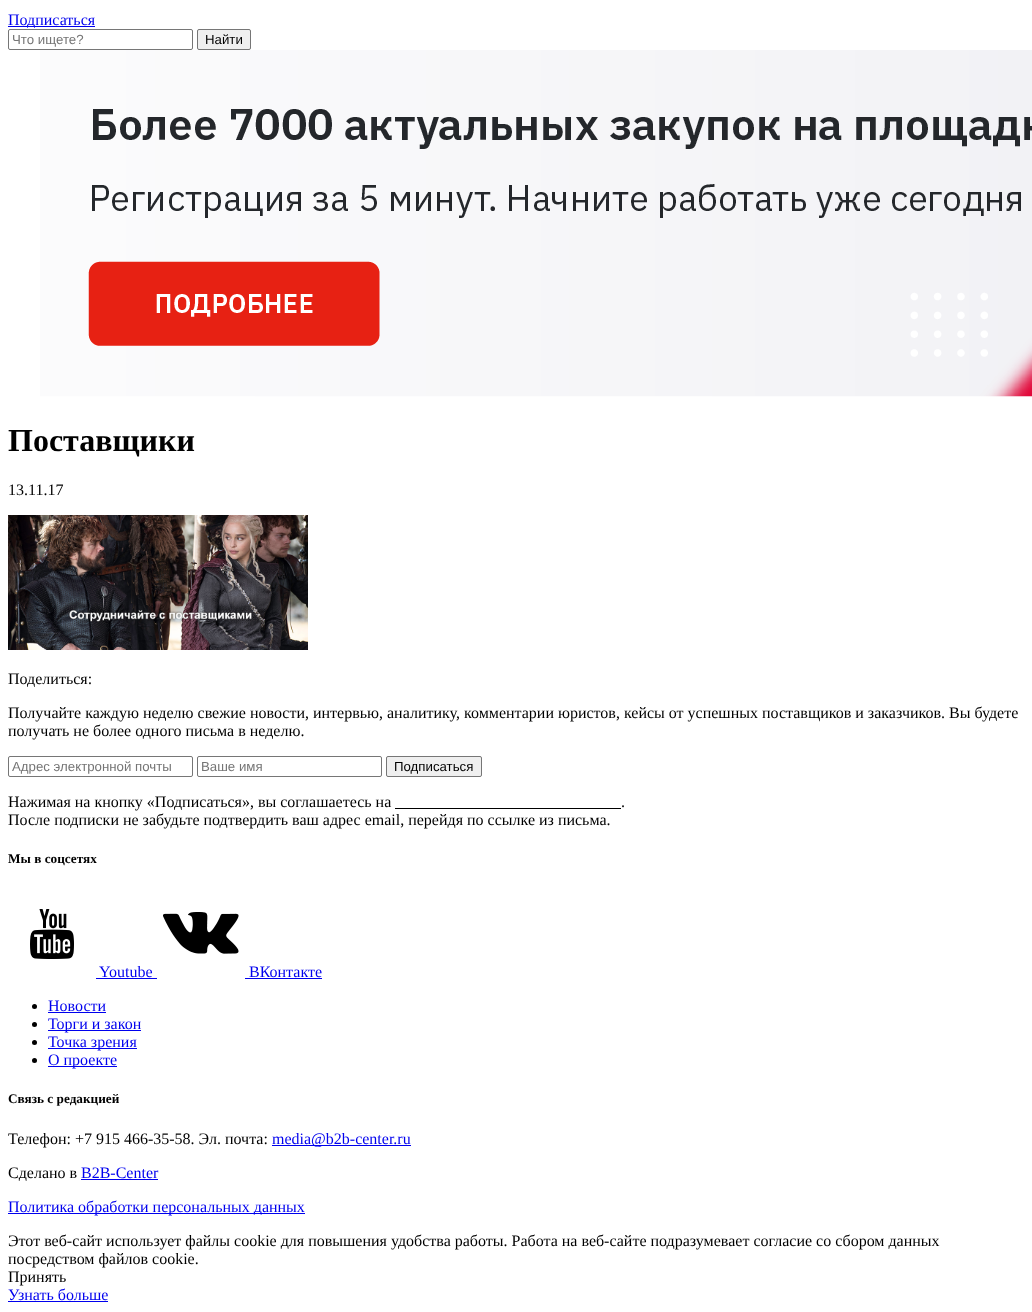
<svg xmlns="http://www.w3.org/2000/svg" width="1032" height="1312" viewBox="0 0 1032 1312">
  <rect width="100%" height="100%" fill="#ffffff"/>
  <rect x="8" y="26" width="87" height="1" fill="#0000ee"/>
  <text x="8" y="25" font-family="Liberation Serif" font-size="16" fill="#0000ee">Подписаться</text>
  <rect x="8.5" y="29.5" width="184" height="20" rx="1.5" fill="none" stroke="#767676"/>
  <text x="12" y="44" font-family="Liberation Sans" font-size="13.25" fill="#757575">Что ищете?</text>
  <rect x="197.5" y="29.5" width="53" height="20" rx="1.5" fill="#efefef" stroke="#767676"/>
  <text x="205" y="44" font-family="Liberation Sans" font-size="13.25" fill="#000000">Найти</text>
  <image x="40" y="50" width="992" height="347" href="img1.png"/>
  <text x="8" y="451" font-family="Liberation Serif" font-size="32" font-weight="bold" fill="#000000">Поставщики</text>
  <text x="8" y="495" font-family="Liberation Serif" font-size="16" fill="#000000">13.11.17</text>
  <image x="8" y="515" width="300" height="135" href="img2.png"/>
  <text x="8" y="684" font-family="Liberation Serif" font-size="16" fill="#000000">Поделиться:</text>
  <text x="8" y="718" font-family="Liberation Serif" font-size="16" fill="#000000">Получайте каждую неделю свежие новости, интервью, аналитику, комментарии юристов, кейсы от успешных поставщиков и заказчиков. Вы будете</text>
  <text x="8" y="736" font-family="Liberation Serif" font-size="16" fill="#000000">получать не более одного письма в неделю.</text>
  <rect x="8.5" y="756.5" width="184" height="20" rx="1.5" fill="none" stroke="#767676"/>
  <text x="12" y="771" font-family="Liberation Sans" font-size="13.25" fill="#757575">Адрес электронной почты</text>
  <rect x="197.5" y="756.5" width="184" height="20" rx="1.5" fill="none" stroke="#767676"/>
  <text x="201" y="771" font-family="Liberation Sans" font-size="13.25" fill="#757575">Ваше имя</text>
  <rect x="386.5" y="756.5" width="95" height="20" rx="1.5" fill="#efefef" stroke="#767676"/>
  <text x="394" y="771" font-family="Liberation Sans" font-size="13.25" fill="#000000">Подписаться</text>
  <text x="8" y="807" font-family="Liberation Serif" font-size="16" fill="#000000">Нажимая на кнопку «Подписаться», вы соглашаетесь на</text>
  <text x="621" y="807" font-family="Liberation Serif" font-size="16" fill="#000000">.</text>
  <rect x="395" y="808" width="226" height="1" fill="#000000"/>
  <text x="8" y="825" font-family="Liberation Serif" font-size="16" fill="#000000">После подписки не забудьте подтвердить ваш адрес email, перейдя по ссылке из письма.</text>
  <text x="8" y="863" font-family="Liberation Serif" font-size="13.25" font-weight="bold" fill="#000000">Мы в соцсетях</text>
  <image x="30" y="909" width="44" height="50" href="img3.png"/>
  <image x="163" y="912" width="76" height="42" href="img4.png"/>
  <text x="99" y="977" font-family="Liberation Serif" font-size="16" fill="#0000ee">Youtube</text>
  <rect x="96" y="978" width="61" height="1" fill="#0000ee"/>
  <text x="249" y="977" font-family="Liberation Serif" font-size="16" fill="#0000ee">ВКонтакте</text>
  <rect x="245" y="978" width="77" height="1" fill="#0000ee"/>
  <circle cx="34.5" cy="1006.5" r="2.5" fill="#000000"/>
  <text x="48" y="1011" font-family="Liberation Serif" font-size="16" fill="#0000ee">Новости</text>
  <rect x="48" y="1012" width="58" height="1" fill="#0000ee"/>
  <circle cx="34.5" cy="1024.5" r="2.5" fill="#000000"/>
  <rect x="48" y="1030" width="93" height="1" fill="#0000ee"/>
  <text x="48" y="1029" font-family="Liberation Serif" font-size="16" fill="#0000ee">Торги и закон</text>
  <circle cx="34.5" cy="1042.5" r="2.5" fill="#000000"/>
  <rect x="48" y="1048" width="89" height="1" fill="#0000ee"/>
  <text x="48" y="1047" font-family="Liberation Serif" font-size="16" fill="#0000ee">Точка зрения</text>
  <circle cx="34.5" cy="1060.5" r="2.5" fill="#000000"/>
  <rect x="48" y="1066" width="69" height="1" fill="#0000ee"/>
  <text x="48" y="1065" font-family="Liberation Serif" font-size="16" fill="#0000ee">О проекте</text>
  <text x="8" y="1103" font-family="Liberation Serif" font-size="13.25" font-weight="bold" fill="#000000">Связь с редакцией</text>
  <text x="8" y="1144" font-family="Liberation Serif" font-size="16" fill="#000000">Телефон: +7 915 466-35-58. Эл. почта:</text>
  <rect x="272" y="1145" width="139" height="1" fill="#0000ee"/>
  <text x="272" y="1144" font-family="Liberation Serif" font-size="16" fill="#0000ee">media@b2b-center.ru</text>
  <text x="8" y="1178" font-family="Liberation Serif" font-size="16" fill="#000000">Сделано в</text>
  <text x="81" y="1178" font-family="Liberation Serif" font-size="16" fill="#0000ee">B2B-Center</text>
  <rect x="81" y="1179" width="77" height="1" fill="#0000ee"/>
  <rect x="8" y="1213" width="297" height="1" fill="#0000ee"/>
  <text x="8" y="1212" font-family="Liberation Serif" font-size="16" fill="#0000ee">Политика обработки персональных данных</text>
  <text x="8" y="1246" font-family="Liberation Serif" font-size="16" fill="#000000">Этот веб-сайт использует файлы cookie для повышения удобства работы. Работа на веб-сайте подразумевает согласие со сбором данных</text>
  <text x="8" y="1264" font-family="Liberation Serif" font-size="16" fill="#000000">посредством файлов cookie.</text>
  <text x="8" y="1282" font-family="Liberation Serif" font-size="16" fill="#000000">Принять</text>
  <text x="8" y="1300" font-family="Liberation Serif" font-size="16" fill="#0000ee">Узнать больше</text>
  <rect x="8" y="1301" width="100" height="1" fill="#0000ee"/>
</svg>
